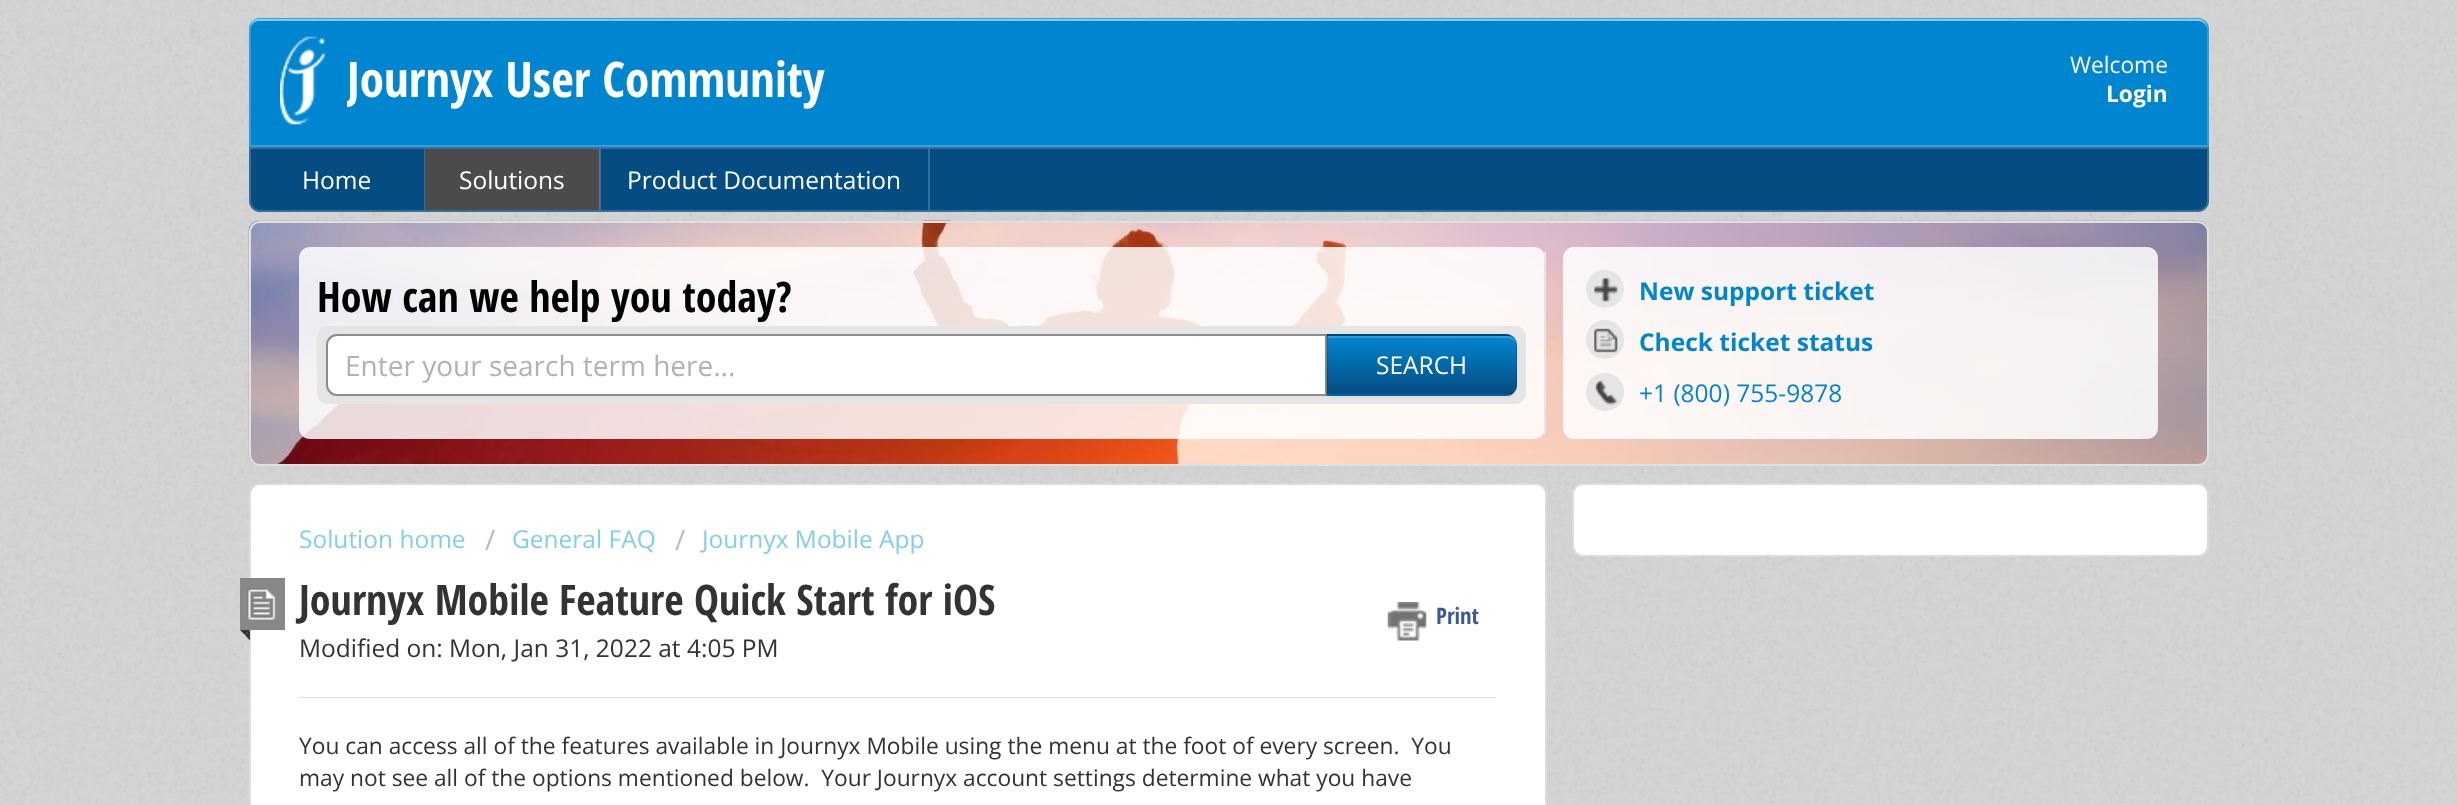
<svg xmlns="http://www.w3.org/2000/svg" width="2457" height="805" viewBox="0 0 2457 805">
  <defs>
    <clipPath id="clip1"><rect x="347" y="42" width="1345" height="75"/></clipPath>
    <filter id="blur1" x="-50%" y="-200%" width="200%" height="500%"><feGaussianBlur stdDeviation="2"/></filter>
    <clipPath id="clip2"><path d="M1327 334H1506C1512 334 1517 339 1517 345V385C1517 391 1512 396 1506 396H1327Z"/></clipPath>
    <linearGradient id="g1" gradientUnits="userSpaceOnUse" x1="1422" y1="278" x2="1422" y2="336"><stop offset="0" stop-color="#0086d1"/><stop offset="1" stop-color="#054c82"/></linearGradient>
    <linearGradient id="g2" gradientUnits="userSpaceOnUse" x1="1422" y1="336" x2="1422" y2="394"><stop offset="0" stop-color="#0086d1"/><stop offset="1" stop-color="#054c82"/></linearGradient>
    <linearGradient id="g3" gradientUnits="userSpaceOnUse" x1="1422" y1="394" x2="1422" y2="452"><stop offset="0" stop-color="#0086d1"/><stop offset="1" stop-color="#054c82"/></linearGradient>
  </defs>
  <rect width="100%" height="100%" fill="#d4d4d4"/>
  <image x="0" y="0" width="2457" height="805" href="img1.png"/>
  <path d="M260 18H2198C2204 18 2209 23 2209 29V147H249V29C249 23 254 18 260 18Z" fill="#0086d1"/>
  <path d="M259 21H2198C2203 21 2207 25 2207 30C2207 24 2204 19 2198 19H259C253 19 250 24 250 30C250 25 254 21 259 21Z" fill="#80c3e8"/>
  <path d="M260 19H2198C2203.5 19 2208 23.5 2208 29V146H250V29C250 23.5 254.5 19 260 19Z" fill="none" stroke="#ffffff" stroke-opacity="0.2" stroke-width="2"/>
  <image x="280" y="36" width="46" height="89" href="img2.png"/>
  <g clip-path="url(#clip1)">
    <text x="347" y="97" font-family="Open Sans Condensed" font-size="49" font-weight="bold" fill="#ffffff">Journyx User Community</text>
  </g>
  <text x="2070" y="73" font-family="Open Sans" font-size="22.75" fill="#ffffff">Welcome</text>
  <text x="2106" y="102" font-family="Open Sans" font-size="22.75" font-weight="bold" fill="#ffffff">Login</text>
  <path d="M249 147H2209V201C2209 207 2204 212 2198 212H260C254 212 249 207 249 201Z" fill="#054c82"/>
  <path d="M250 148H2208V201C2208 206.5 2203.5 211 2198 211H260C254.5 211 250 206.5 250 201Z" fill="none" stroke="#ffffff" stroke-opacity="0.2" stroke-width="2"/>
  <rect x="424" y="149" width="1" height="61" fill="#37709b"/>
  <text x="302" y="189" font-family="Open Sans" font-size="24.5" fill="#ffffff">Home</text>
  <rect x="425" y="149" width="175" height="61" fill="#4c4b4b"/>
  <rect x="599" y="149" width="2" height="61" fill="#ffffff" fill-opacity="0.2"/>
  <text x="459" y="189" font-family="Open Sans" font-size="24.5" fill="#ffffff">Solutions</text>
  <rect x="928" y="149" width="2" height="61" fill="#37709b"/>
  <text x="627" y="189" font-family="Open Sans" font-size="24.5" fill="#ffffff">Product Documentation</text>
  <image x="248" y="220" width="1961" height="246" href="img3.png"/>
  <rect x="250" y="222" width="1958" height="243" rx="10" fill="none" stroke="#e0e0e0" stroke-width="2"/>
  <rect x="299" y="247" width="1246" height="192" rx="11" fill="#ffffff" fill-opacity="0.85"/>
  <rect x="1544" y="252" width="2" height="182" fill="#e5e5e5"/>
  <text x="317" y="312" font-family="Open Sans Condensed" font-size="42" font-weight="bold" fill="#000000">How can we help you today?</text>
  <rect x="317" y="326" width="1209" height="78" rx="11" fill="#e5e5e5"/>
  <path d="M337 335H1326V395H337C331.5 395 327 390.5 327 385V345C327 339.5 331.5 335 337 335Z" fill="#ffffff" stroke="#8c8c8c" stroke-width="2"/>
  <text x="345" y="376" font-family="Open Sans" font-size="28" fill="#b2b2b2">Enter your search term here...</text>
  <rect x="1327" y="336" width="190" height="61" rx="11" fill="#000000" fill-opacity="0.05" filter="url(#blur1)"/>
  <g clip-path="url(#clip2)">
    <rect x="1327" y="334" width="190" height="2" fill="url(#g1)"/>
    <rect x="1327" y="336" width="190" height="58" fill="url(#g2)"/>
    <rect x="1327" y="394" width="190" height="2" fill="url(#g3)"/>
  </g>
  <path d="M1328 338H1507C1512 338 1516 342 1516 346V345C1516 340 1512 336 1507 336H1328Z" fill="#ffffff" fill-opacity="0.2"/>
  <path d="M1326 334H1509C1511 335 1513 336 1514 337L1513 338C1512 337 1509 336 1507 336H1328Z" fill="#000000" fill-opacity="0.1"/>
  <path d="M1514 337C1516 339 1517 342 1517 345V385C1517 388 1516 391 1514 393L1513 391C1515 390 1516 388 1516 385V345C1516 342 1515 340 1513 338Z" fill="#000000" fill-opacity="0.1"/>
  <path d="M1514 393C1513 394 1512 395 1510 396H1326L1328 394H1507C1509 394 1512 393 1513 391Z" fill="#000000" fill-opacity="0.25"/>
  <path d="M1328 336L1326 334V396L1328 394Z" fill="#000000" fill-opacity="0.1"/>
  <text x="1376" y="374" font-family="Open Sans" font-size="24.5" fill="#ffffff">SEARCH</text>
  <rect x="1563" y="247" width="595" height="192" rx="11" fill="#ffffff" fill-opacity="0.85"/>
  <circle cx="1605" cy="289" r="19" fill="#e5e5e5"/>
  <image x="1592" y="276" width="26" height="26" href="img4.png"/>
  <text x="1639" y="300" font-family="Open Sans" font-size="24.5" font-weight="bold" fill="#0086d1">New support ticket</text>
  <rect x="1586" y="320" width="38" height="39" rx="19" fill="#e5e5e5"/>
  <image x="1592" y="327" width="26" height="26" href="img5.png"/>
  <text x="1639" y="351" font-family="Open Sans" font-size="24.5" font-weight="bold" fill="#0086d1">Check ticket status</text>
  <circle cx="1605" cy="392" r="19" fill="#e5e5e5"/>
  <image x="1595" y="379" width="23" height="26" href="img6.png"/>
  <text x="1639" y="402" font-family="Open Sans" font-size="24.5" fill="#0086d1">+1 (800) 755-9878</text>
  <rect x="1573" y="484" width="635" height="72" rx="10" fill="#ffffff" stroke="#dcdcdc" stroke-width="2"/>
  <rect x="250" y="484" width="1296" height="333" rx="10" fill="#ffffff" stroke="#dcdcdc" stroke-width="2"/>
  <text x="299" y="548" font-family="Open Sans" font-size="24.5" fill="#82ceed">Solution home</text>
  <text x="485" y="550" font-family="Open Sans" font-size="28" fill="#bbbbbb">/</text>
  <text x="512" y="548" font-family="Open Sans" font-size="24.5" fill="#82ceed">General FAQ</text>
  <text x="675" y="550" font-family="Open Sans" font-size="28" fill="#bbbbbb">/</text>
  <text x="702" y="548" font-family="Open Sans" font-size="24.5" fill="#82ceed">Journyx Mobile App</text>
  <rect x="240" y="578" width="45" height="52" fill="#888888"/>
  <image x="247" y="588" width="29" height="32" href="img7.png"/>
  <path d="M240 630H250L245 635Z" fill="#333333"/>
  <path d="M250 630V640.5L245 635Z" fill="#333333"/>
  <text x="299" y="615" font-family="Open Sans Condensed" font-size="42" font-weight="bold" fill="#333333">Journyx Mobile Feature Quick Start for iOS</text>
  <image x="1387" y="602" width="40" height="39" href="img8.png"/>
  <text x="1436" y="624" font-family="Open Sans Condensed" font-size="22.75" font-weight="bold" fill="#3b5998">Print</text>
  <text x="299" y="657" font-family="Open Sans" font-size="24.5" fill="#333333">Modified on: Mon, Jan 31, 2022 at 4:05 PM</text>
  <rect x="299" y="697" width="1197" height="1" fill="#dcdcdc"/>
  <text x="299" y="754" font-family="Open Sans" font-size="22.75" fill="#333333" xml:space="preserve">You can access all of the features available in Journyx Mobile using the menu at the foot of every screen.  You</text>
  <text x="299" y="786" font-family="Open Sans" font-size="22.75" fill="#333333" xml:space="preserve">may not see all of the options mentioned below.  Your Journyx account settings determine what you have</text>
</svg>
